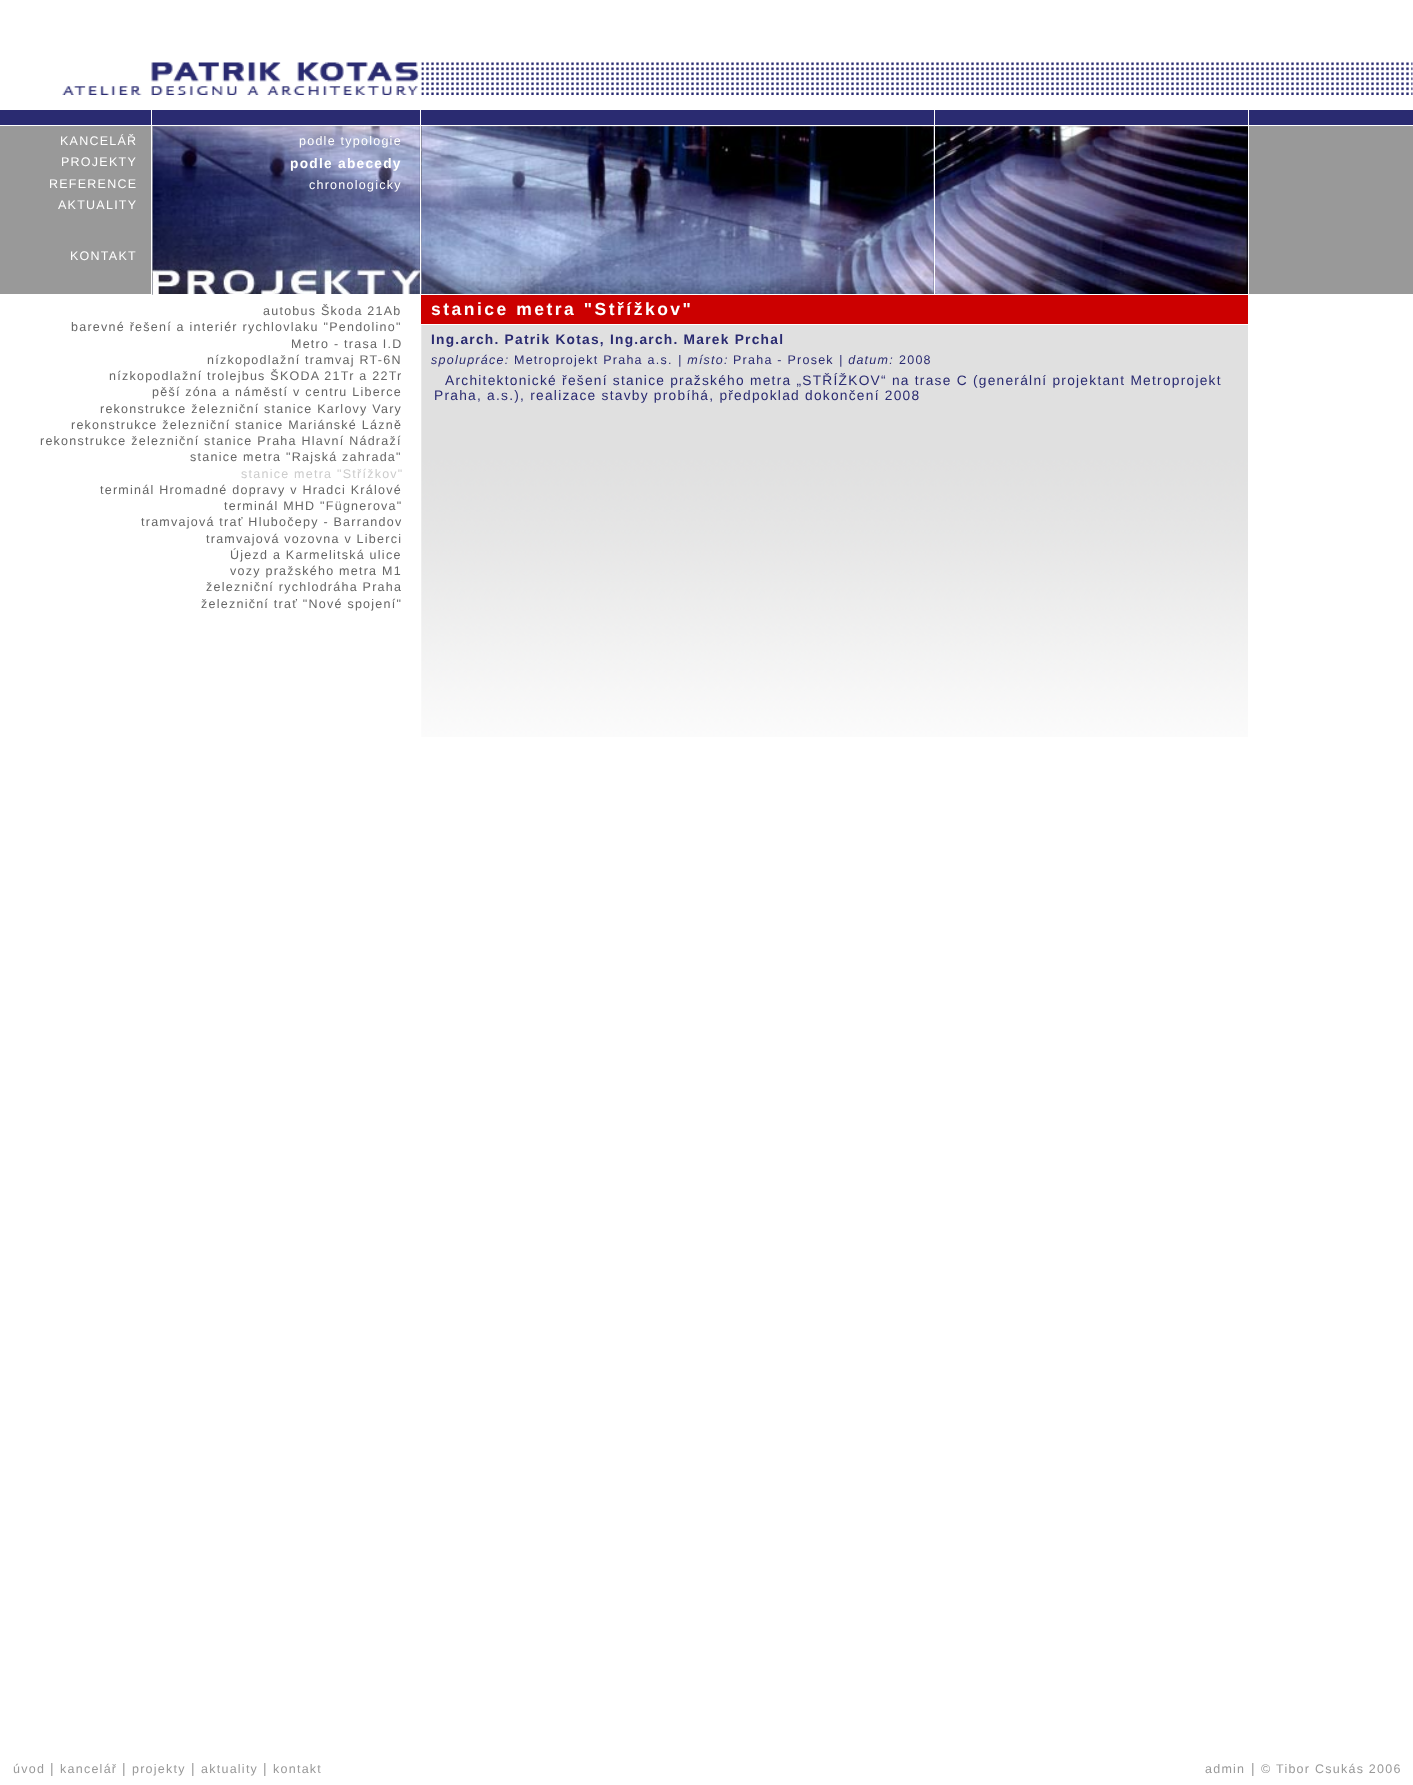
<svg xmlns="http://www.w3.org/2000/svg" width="1413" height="1785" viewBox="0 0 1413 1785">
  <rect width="100%" height="100%" fill="#ffffff"/>
  <image x="421" y="62" width="992" height="33" href="img2.png"/>
  <image x="62" y="62" width="360" height="33" href="img1.png"/>
  <rect x="0" y="110" width="1413" height="15" fill="#2a2b71"/>
  <rect x="151" y="110" width="1" height="16" fill="#ffffff"/>
  <rect x="420" y="110" width="1" height="16" fill="#ffffff"/>
  <rect x="934" y="110" width="1" height="16" fill="#ffffff"/>
  <rect x="1248" y="110" width="1" height="16" fill="#ffffff"/>
  <rect x="0" y="126" width="1413" height="168" fill="#999999"/>
  <rect x="151" y="126" width="1" height="169" fill="#ffffff"/>
  <text x="60" y="145" font-family="Liberation Sans" font-size="12.5" letter-spacing="1.25" fill="#ffffff">KANCELÁŘ</text>
  <text x="61" y="166" font-family="Liberation Sans" font-size="12.5" letter-spacing="1.25" fill="#ffffff">PROJEKTY</text>
  <text x="49" y="188" font-family="Liberation Sans" font-size="12.5" letter-spacing="1.25" fill="#ffffff">REFERENCE</text>
  <text x="58" y="209" font-family="Liberation Sans" font-size="12.5" letter-spacing="1.25" fill="#ffffff">AKTUALITY</text>
  <text x="70" y="260" font-family="Liberation Sans" font-size="12.5" letter-spacing="1.25" fill="#ffffff">KONTAKT</text>
  <image x="152" y="126" width="270" height="169" href="img3.png"/>
  <rect x="420" y="126" width="1" height="169" fill="#ffffff"/>
  <rect x="153" y="294" width="269" height="1" fill="#ffffff"/>
  <text x="299" y="145" font-family="Liberation Sans" font-size="12.5" letter-spacing="1.25" fill="#ffffff">podle typologie</text>
  <text x="290" y="168" font-family="Liberation Sans" font-size="13.75" font-weight="bold" letter-spacing="1.25" fill="#ffffff">podle abecedy</text>
  <text x="309" y="189" font-family="Liberation Sans" font-size="12.5" letter-spacing="1.25" fill="#ffffff">chronologicky</text>
  <image x="421" y="126" width="513" height="168" href="img4.png"/>
  <rect x="934" y="126" width="1" height="169" fill="#ffffff"/>
  <image x="935" y="126" width="313" height="168" href="img5.png"/>
  <rect x="1248" y="126" width="1" height="169" fill="#ffffff"/>
  <text x="263" y="315" font-family="Liberation Sans" font-size="12.5" letter-spacing="1.25" fill="#666666">autobus Škoda 21Ab</text>
  <text x="71" y="331" font-family="Liberation Sans" font-size="12.5" letter-spacing="1.25" fill="#666666">barevné řešení a interiér rychlovlaku "Pendolino"</text>
  <text x="291" y="348" font-family="Liberation Sans" font-size="12.5" letter-spacing="1.25" fill="#666666">Metro - trasa I.D</text>
  <text x="207" y="364" font-family="Liberation Sans" font-size="12.5" letter-spacing="1.25" fill="#666666">nízkopodlažní tramvaj RT-6N</text>
  <text x="109" y="380" font-family="Liberation Sans" font-size="12.5" letter-spacing="1.25" fill="#666666">nízkopodlažní trolejbus ŠKODA 21Tr a 22Tr</text>
  <text x="152" y="396" font-family="Liberation Sans" font-size="12.5" letter-spacing="1.25" fill="#666666">pěší zóna a náměstí v centru Liberce</text>
  <text x="100" y="413" font-family="Liberation Sans" font-size="12.5" letter-spacing="1.25" fill="#666666">rekonstrukce železniční stanice Karlovy Vary</text>
  <text x="71" y="429" font-family="Liberation Sans" font-size="12.5" letter-spacing="1.25" fill="#666666">rekonstrukce železniční stanice Mariánské Lázně</text>
  <text x="40" y="445" font-family="Liberation Sans" font-size="12.5" letter-spacing="1.25" fill="#666666">rekonstrukce železniční stanice Praha Hlavní Nádraží</text>
  <text x="190" y="461" font-family="Liberation Sans" font-size="12.5" letter-spacing="1.25" fill="#666666">stanice metra "Rajská zahrada"</text>
  <text x="241" y="478" font-family="Liberation Sans" font-size="12.5" letter-spacing="1.25" fill="#cccccc">stanice metra "Střížkov"</text>
  <text x="100" y="494" font-family="Liberation Sans" font-size="12.5" letter-spacing="1.25" fill="#666666">terminál Hromadné dopravy v Hradci Králové</text>
  <text x="224" y="510" font-family="Liberation Sans" font-size="12.5" letter-spacing="1.25" fill="#666666">terminál MHD "Fügnerova"</text>
  <text x="141" y="526" font-family="Liberation Sans" font-size="12.5" letter-spacing="1.25" fill="#666666">tramvajová trať Hlubočepy - Barrandov</text>
  <text x="206" y="543" font-family="Liberation Sans" font-size="12.5" letter-spacing="1.25" fill="#666666">tramvajová vozovna v Liberci</text>
  <text x="230" y="559" font-family="Liberation Sans" font-size="12.5" letter-spacing="1.25" fill="#666666">Újezd a Karmelitská ulice</text>
  <text x="230" y="575" font-family="Liberation Sans" font-size="12.5" letter-spacing="1.25" fill="#666666">vozy pražského metra M1</text>
  <text x="206" y="591" font-family="Liberation Sans" font-size="12.5" letter-spacing="1.25" fill="#666666">železniční rychlodráha Praha</text>
  <text x="201" y="608" font-family="Liberation Sans" font-size="12.5" letter-spacing="1.25" fill="#666666">železniční trať "Nové spojení"</text>
  <image x="421" y="325" width="827" height="412" href="img6.png"/>
  <rect x="421" y="295" width="827" height="29" fill="#cc0000"/>
  <text x="431" y="315" font-family="Liberation Sans" font-size="17.5" font-weight="bold" letter-spacing="2.5" fill="#ffffff">stanice metra "Střížkov"</text>
  <text x="431" y="344" font-family="Liberation Sans" font-size="13.75" font-weight="bold" letter-spacing="1.25" fill="#2a2b71">Ing.arch. Patrik Kotas, Ing.arch. Marek Prchal</text>
  <text x="431" y="364" font-family="Liberation Sans" font-size="12.5" font-style="italic" letter-spacing="1.25" fill="#2a2b71">spolupráce:</text>
  <text x="514" y="364" font-family="Liberation Sans" font-size="12.5" letter-spacing="1.25" fill="#2a2b71">Metroprojekt Praha a.s.</text>
  <text x="678" y="364" font-family="Liberation Sans" font-size="12.5" font-style="italic" letter-spacing="1.25" fill="#2a2b71">| místo:</text>
  <text x="733" y="364" font-family="Liberation Sans" font-size="12.5" letter-spacing="1.25" fill="#2a2b71">Praha - Prosek</text>
  <text x="839" y="364" font-family="Liberation Sans" font-size="12.5" font-style="italic" letter-spacing="1.25" fill="#2a2b71">| datum:</text>
  <text x="899" y="364" font-family="Liberation Sans" font-size="12.5" letter-spacing="1.25" fill="#2a2b71">2008</text>
  <text x="445" y="385" font-family="Liberation Sans" font-size="13.75" letter-spacing="1.25" fill="#2a2b71">Architektonické řešení stanice pražského metra „STŘÍŽKOV“ na trase C (generální projektant Metroprojekt</text>
  <text x="434" y="400" font-family="Liberation Sans" font-size="13.75" letter-spacing="1.25" fill="#2a2b71">Praha, a.s.), realizace stavby probíhá, předpoklad dokončení 2008</text>
  <text x="13" y="1773" font-family="Liberation Sans" font-size="12.5" letter-spacing="1.25" fill="#999999">úvod</text>
  <text x="50" y="1773" font-family="Liberation Sans" font-size="13.75" letter-spacing="1.25" fill="#999999">|</text>
  <text x="60" y="1773" font-family="Liberation Sans" font-size="12.5" letter-spacing="1.25" fill="#999999">kancelář</text>
  <text x="122" y="1773" font-family="Liberation Sans" font-size="13.75" letter-spacing="1.25" fill="#999999">|</text>
  <text x="132" y="1773" font-family="Liberation Sans" font-size="12.5" letter-spacing="1.25" fill="#999999">projekty</text>
  <text x="191" y="1773" font-family="Liberation Sans" font-size="13.75" letter-spacing="1.25" fill="#999999">|</text>
  <text x="201" y="1773" font-family="Liberation Sans" font-size="12.5" letter-spacing="1.25" fill="#999999">aktuality</text>
  <text x="263" y="1773" font-family="Liberation Sans" font-size="13.75" letter-spacing="1.25" fill="#999999">|</text>
  <text x="273" y="1773" font-family="Liberation Sans" font-size="12.5" letter-spacing="1.25" fill="#999999">kontakt</text>
  <text x="1205" y="1773" font-family="Liberation Sans" font-size="12.5" letter-spacing="1.25" fill="#999999">admin</text>
  <text x="1251" y="1773" font-family="Liberation Sans" font-size="13.75" letter-spacing="1.25" fill="#999999">|</text>
  <text x="1261" y="1773" font-family="Liberation Sans" font-size="12.5" letter-spacing="1.25" fill="#999999">© Tibor Csukás 2006</text>
</svg>
